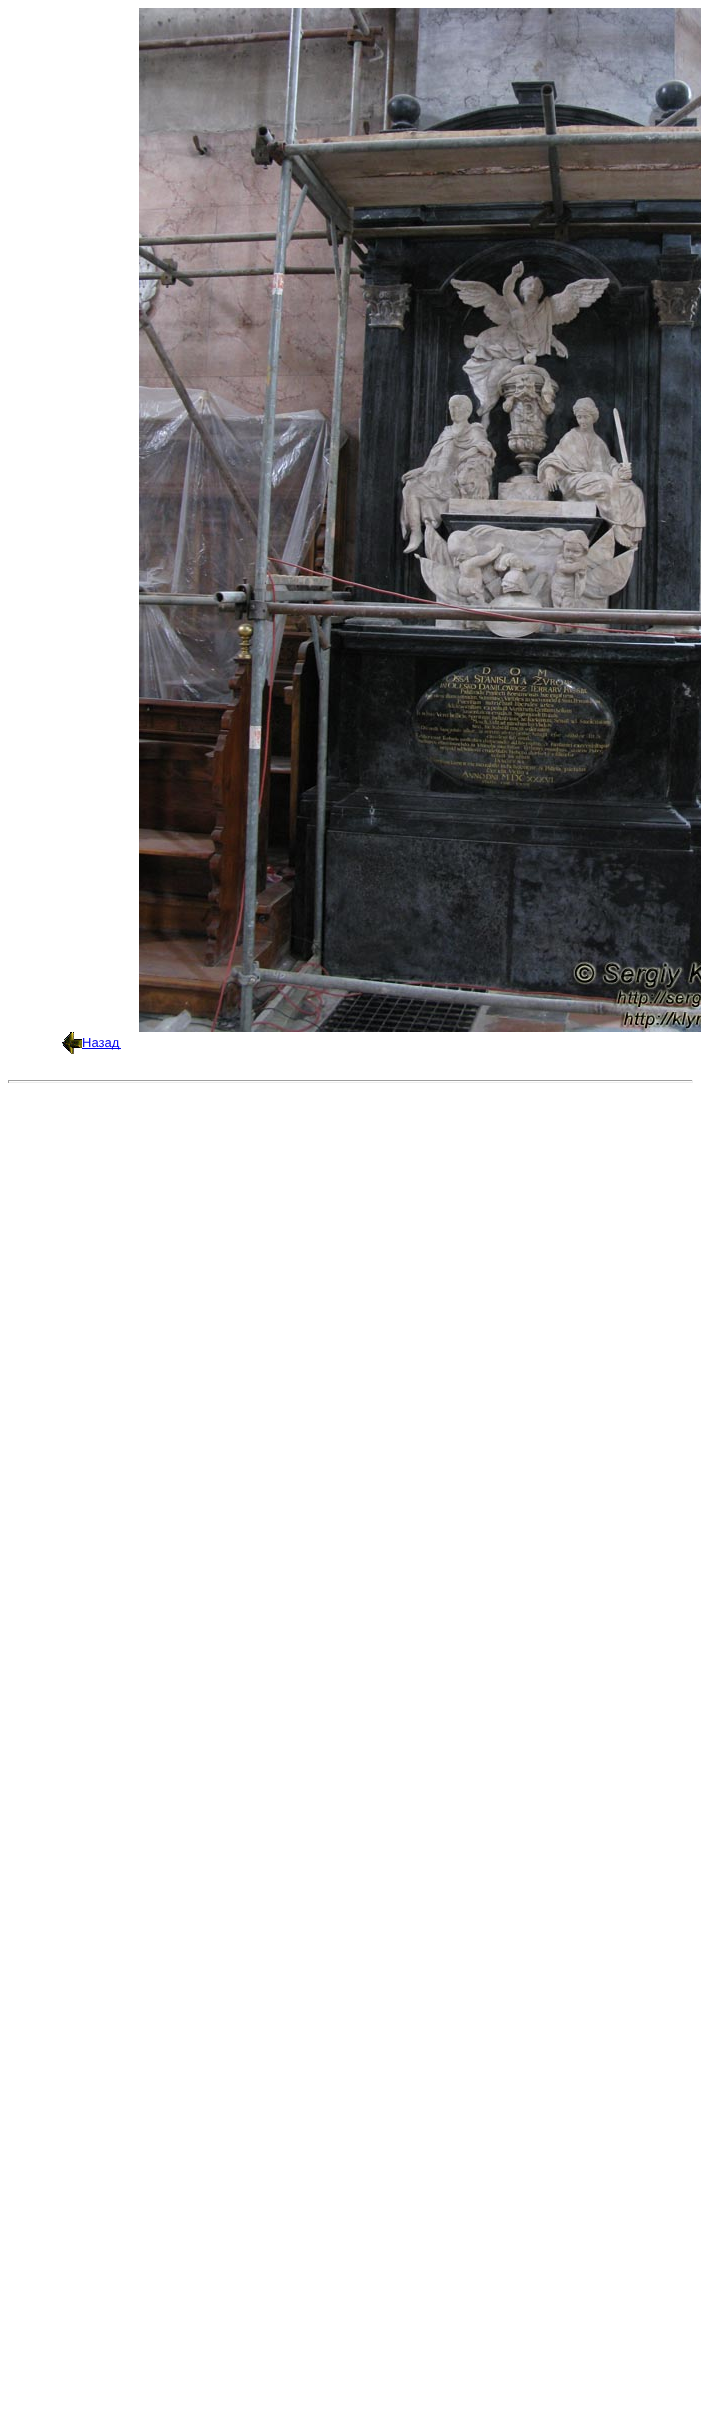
<svg xmlns="http://www.w3.org/2000/svg" width="701" height="2420" viewBox="0 0 701 2420">
  <rect width="100%" height="100%" fill="#ffffff"/>
  <image x="139" y="8" width="562" height="1024" href="img1.png"/>
  <image x="62" y="1032" width="20" height="22" href="img2.png"/>
  <rect x="82" y="1048" width="39" height="1" fill="#0000ee"/>
  <text x="82" y="1047" font-family="Liberation Sans" font-size="13" fill="#0000ee">Назад</text>
  <rect x="8" y="1080" width="685" height="1" fill="#9f9f9f"/>
  <rect x="692" y="1080" width="1" height="3" fill="#eeeeee"/>
  <rect x="8" y="1082" width="685" height="1" fill="#eeeeee"/>
  <rect x="8" y="1080" width="1" height="3" fill="#9f9f9f"/>
</svg>
